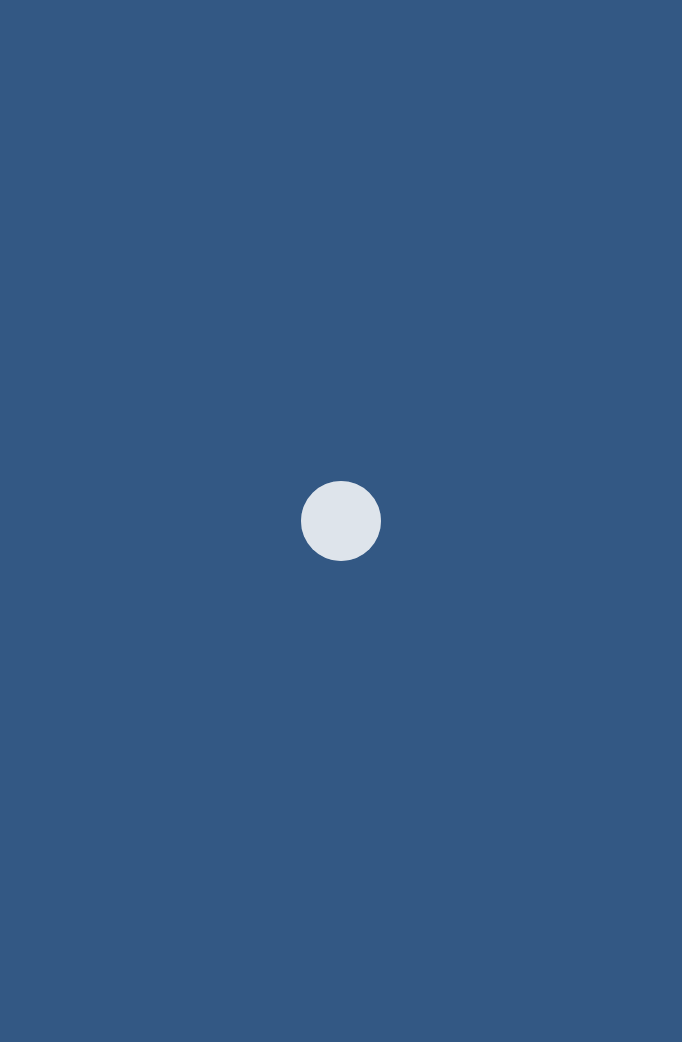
<svg xmlns="http://www.w3.org/2000/svg" width="682" height="1042" viewBox="0 0 682 1042">
  <rect width="100%" height="100%" fill="#335884"/>
  <circle cx="341" cy="521" r="40" fill="#adbcce"/>
  <circle cx="341" cy="521" r="40" fill="#ffffff" fill-opacity="0.6"/>
</svg>
